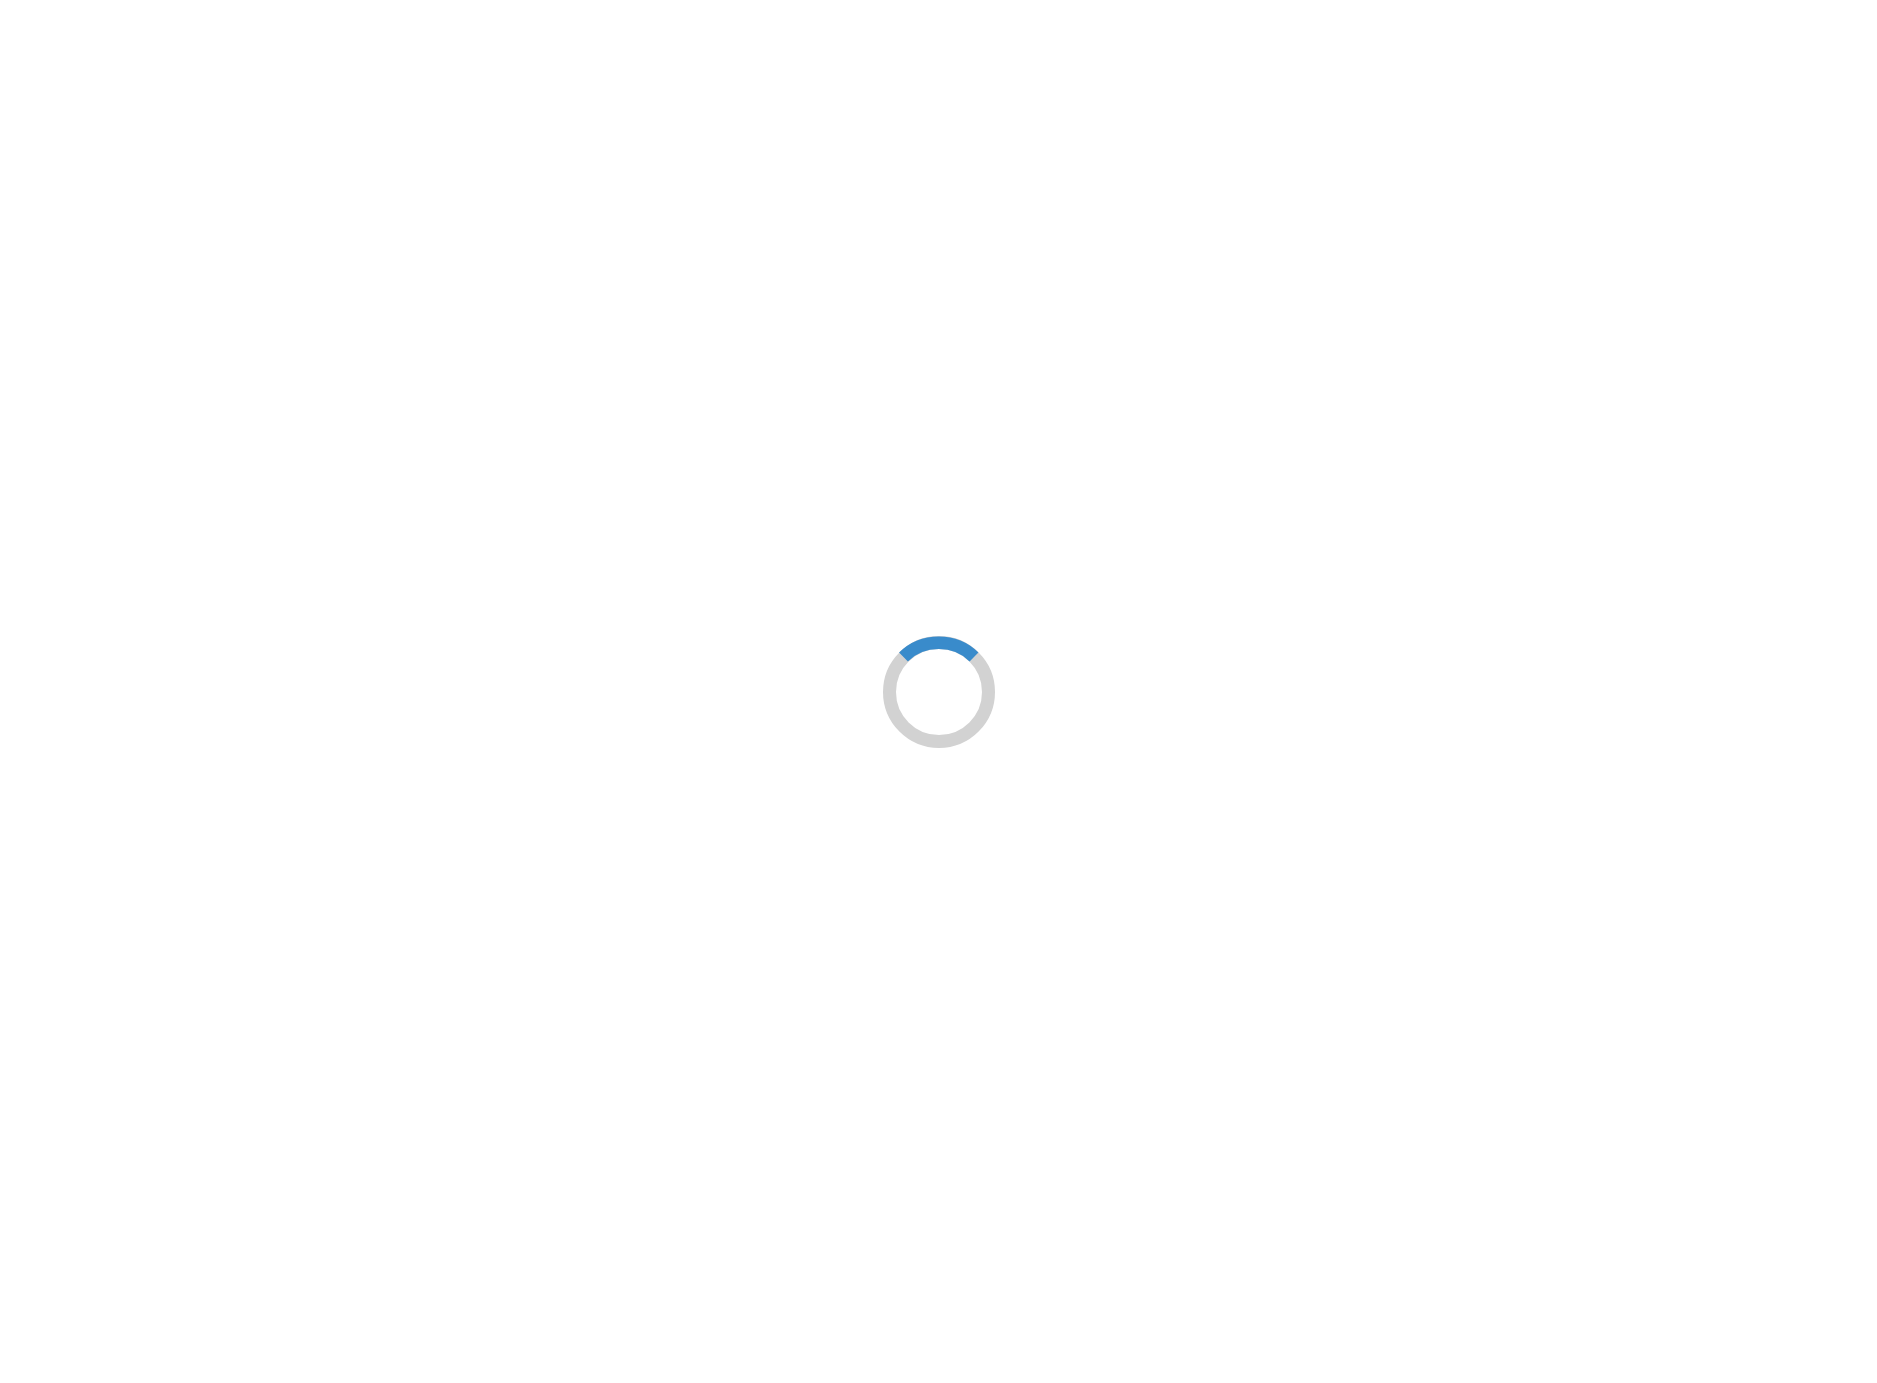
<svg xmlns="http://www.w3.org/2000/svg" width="1877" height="1383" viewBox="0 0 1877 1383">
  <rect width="100%" height="100%" fill="#ffffff"/>
  <circle cx="939" cy="692" r="49.5" fill="none" stroke="#d2d2d2" stroke-width="13"/>
  <path d="M903.5 657C922.5 638 955 638 974 657" fill="none" stroke="#398bcb" stroke-width="12.5"/>
</svg>
